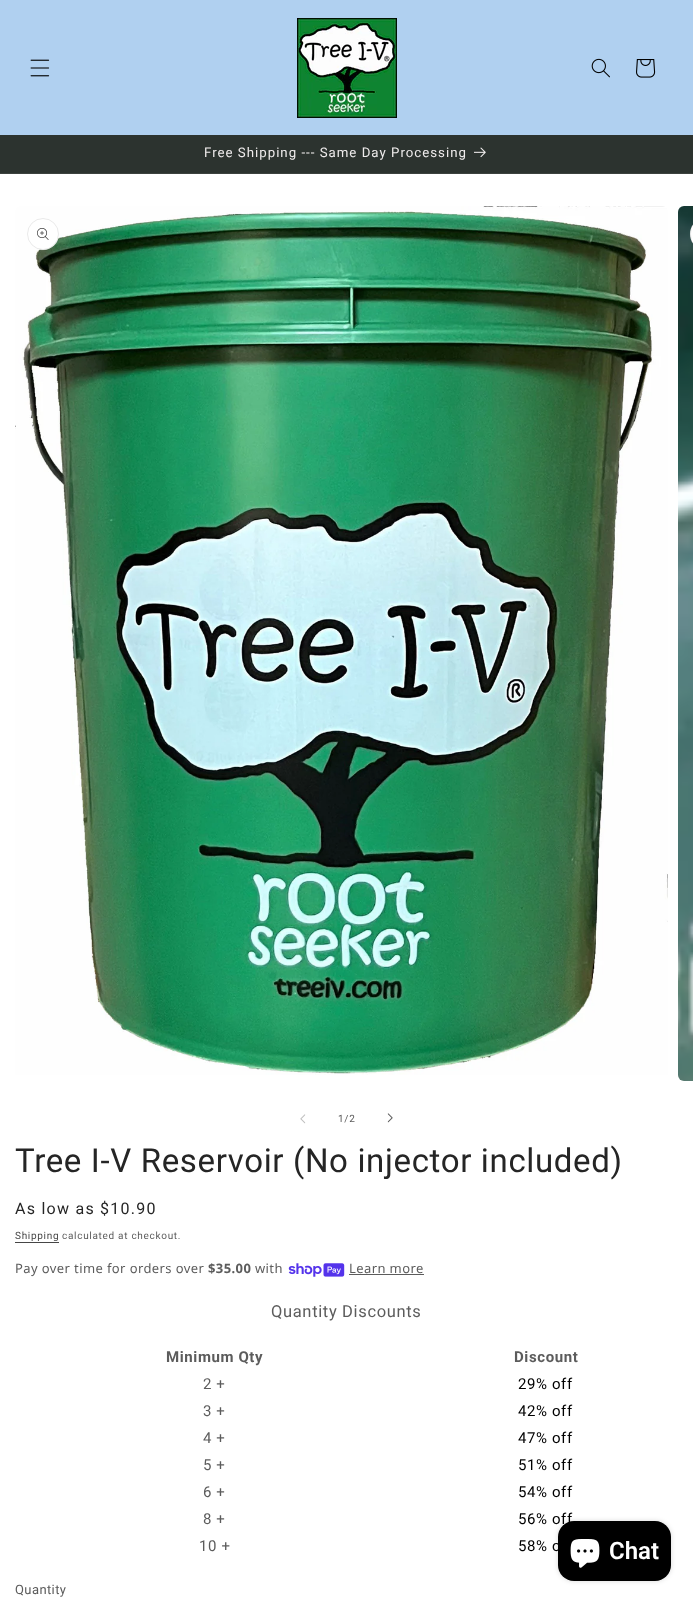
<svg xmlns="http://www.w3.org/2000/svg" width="693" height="1602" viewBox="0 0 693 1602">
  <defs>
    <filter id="blur1" x="-50%" y="-200%" width="200%" height="500%"><feGaussianBlur stdDeviation="2.5"/></filter>
  </defs>
  <rect width="100%" height="100%" fill="#2c332f"/>
  <rect x="0" y="0" width="693" height="135" fill="#b0d0f0"/>
  <image x="30" y="59" width="20" height="18" href="img1.png"/>
  <image x="297" y="18" width="100" height="100" href="img2.png"/>
  <image x="591" y="58" width="19" height="20" href="img3.png"/>
  <image x="636" y="59" width="20" height="19" href="img4.png"/>
  <rect x="0" y="173" width="693" height="1" fill="#3c423e"/>
  <text x="204" y="157" font-family="Roboto" font-size="13.25" letter-spacing="1" fill="#efecec">Free Shipping --- Same Day Processing</text>
  <image x="474" y="147" width="12" height="11" href="img5.png"/>
  <rect x="0" y="174" width="693" height="1428" fill="#ffffff"/>
  <image x="15" y="206" width="653" height="869" href="img6.png"/>
  <circle cx="43" cy="234" r="16" fill="#ffffff"/>
  <circle cx="43" cy="234" r="15.5" fill="none" stroke="#252525" stroke-opacity="0.1"/>
  <image x="37" y="228" width="12" height="12" href="img7.png"/>
  <image x="678" y="206" width="15" height="875" href="img8.png"/>
  <path d="M706 218H693V250H706C697 250 690 243 690 234C690 225 697 218 706 218Z" fill="#ffffff"/>
  <rect x="690.5" y="218.5" width="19" height="31" rx="15.5" fill="none" stroke="#252525" stroke-opacity="0.1"/>
  <image x="300" y="1114" width="6" height="10" href="img9.png"/>
  <text x="338" y="1122" font-family="Roboto" font-size="10" letter-spacing="0.7" fill="#5c5c5c">1/2</text>
  <image x="387" y="1113" width="6" height="10" href="img10.png"/>
  <text x="15" y="1172" font-family="Roboto" font-size="33" letter-spacing="0.65" fill="#252525">Tree I-V Reservoir (No injector included)</text>
  <text x="15" y="1214" font-family="Roboto" font-size="16" letter-spacing="1.25" fill="#252525">As low as $10.90</text>
  <text x="15" y="1239" font-family="Roboto" font-size="10" letter-spacing="0.7" fill="#464646">Shipping</text>
  <rect x="15" y="1242" width="44" height="1" fill="#464646"/>
  <text x="62" y="1239" font-family="Roboto" font-size="10" letter-spacing="0.7" fill="#5c5c5c">calculated at checkout.</text>
  <text x="15" y="1273" font-family="Noto Sans" font-size="13" letter-spacing="0.4" fill="#5c5c5c">Pay over time for orders over</text>
  <text x="208" y="1273" font-family="Noto Sans" font-size="13" font-weight="bold" letter-spacing="0.4" fill="#5c5c5c">$35.00</text>
  <text x="255" y="1273" font-family="Noto Sans" font-size="13" letter-spacing="0.4" fill="#5c5c5c">with</text>
  <image x="288" y="1263" width="57" height="14" href="img11.png"/>
  <text x="349" y="1273" font-family="Noto Sans" font-size="13" letter-spacing="0.4" fill="#5c5c5c">Learn more</text>
  <rect x="349" y="1274" width="75" height="1" fill="#5c5c5c"/>
  <text x="271" y="1317" font-family="Roboto" font-size="16.5" letter-spacing="0.65" fill="#5c5c5c">Quantity Discounts</text>
  <text x="166" y="1362" font-family="Roboto" font-size="15" font-weight="bold" letter-spacing="0.6" fill="#5c5c5c">Minimum Qty</text>
  <text x="514" y="1362" font-family="Roboto" font-size="15" font-weight="bold" letter-spacing="0.6" fill="#5c5c5c">Discount</text>
  <text x="203" y="1389" font-family="Roboto" font-size="15" letter-spacing="0.6" fill="#5c5c5c">2 +</text>
  <text x="518" y="1389" font-family="Roboto" font-size="15" letter-spacing="0.6" fill="#000000">29% off</text>
  <text x="203" y="1416" font-family="Roboto" font-size="15" letter-spacing="0.6" fill="#5c5c5c">3 +</text>
  <text x="518" y="1416" font-family="Roboto" font-size="15" letter-spacing="0.6" fill="#000000">42% off</text>
  <text x="203" y="1443" font-family="Roboto" font-size="15" letter-spacing="0.6" fill="#5c5c5c">4 +</text>
  <text x="518" y="1443" font-family="Roboto" font-size="15" letter-spacing="0.6" fill="#000000">47% off</text>
  <text x="203" y="1470" font-family="Roboto" font-size="15" letter-spacing="0.6" fill="#5c5c5c">5 +</text>
  <text x="518" y="1470" font-family="Roboto" font-size="15" letter-spacing="0.6" fill="#000000">51% off</text>
  <text x="203" y="1497" font-family="Roboto" font-size="15" letter-spacing="0.6" fill="#5c5c5c">6 +</text>
  <text x="518" y="1497" font-family="Roboto" font-size="15" letter-spacing="0.6" fill="#000000">54% off</text>
  <text x="203" y="1524" font-family="Roboto" font-size="15" letter-spacing="0.6" fill="#5c5c5c">8 +</text>
  <text x="518" y="1524" font-family="Roboto" font-size="15" letter-spacing="0.6" fill="#000000">56% off</text>
  <text x="199" y="1551" font-family="Roboto" font-size="15" letter-spacing="0.6" fill="#5c5c5c">10 +</text>
  <text x="518" y="1551" font-family="Roboto" font-size="15" letter-spacing="0.6" fill="#000000">58% o</text>
  <text x="15" y="1594" font-family="Roboto" font-size="13" letter-spacing="0.4" fill="#5c5c5c">Quantity</text>
  <rect x="558" y="1521" width="113" height="60" rx="16" fill="#000000" fill-opacity="0.15" filter="url(#blur1)"/>
  <rect x="558" y="1521" width="113" height="60" rx="16" fill="#000000"/>
  <image x="570" y="1539" width="30" height="29" href="img12.png"/>
  <text x="609" y="1559" font-family="Roboto" font-size="24" font-weight="600" fill="#ffffff">Chat</text>
</svg>
